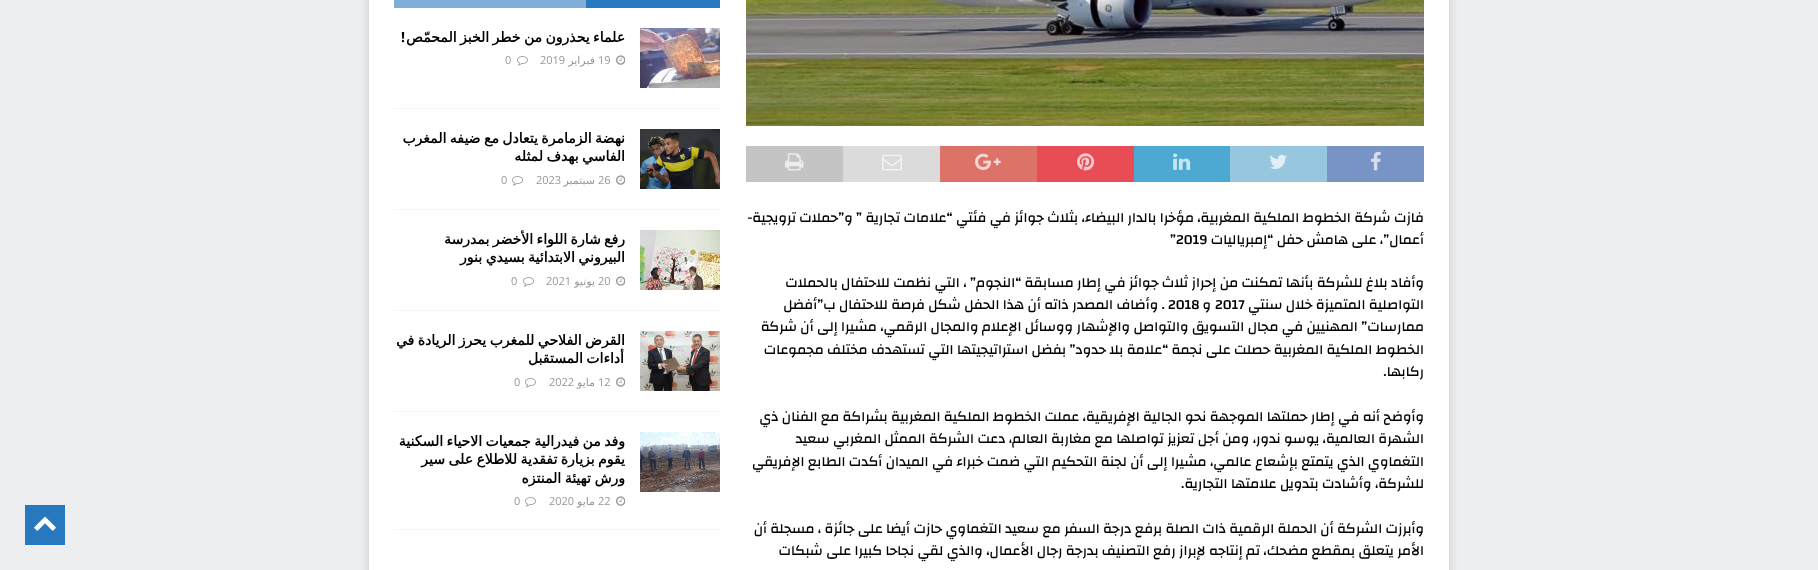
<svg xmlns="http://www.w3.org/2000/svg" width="1818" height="570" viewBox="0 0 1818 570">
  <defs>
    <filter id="blur1" x="-50%" y="-200%" width="200%" height="500%"><feGaussianBlur stdDeviation="5"/></filter>
    <clipPath id="clip1"><rect x="394" y="28" width="231" height="41"/></clipPath>
    <clipPath id="clip2"><rect x="394" y="129" width="231" height="59"/></clipPath>
    <clipPath id="clip3"><rect x="394" y="230" width="231" height="59"/></clipPath>
    <clipPath id="clip4"><rect x="394" y="331" width="231" height="59"/></clipPath>
    <clipPath id="clip5"><rect x="394" y="432" width="231" height="77"/></clipPath>
  </defs>
  <rect width="100%" height="100%" fill="#edeeef"/>
  <rect x="369" y="-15" width="1080" height="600" fill="#323232" fill-opacity="0.17" filter="url(#blur1)"/>
  <rect x="369" y="0" width="1080" height="570" fill="#ffffff"/>
  <image x="746" y="0" width="678" height="126" href="img1.png"/>
  <rect x="1327" y="146" width="97" height="36" fill="#7893c6"/>
  <image x="1371" y="151" width="10" height="20" href="img2.png"/>
  <rect x="1230" y="146" width="97" height="36" fill="#97c6df"/>
  <image x="1269" y="154" width="18" height="15" href="img3.png"/>
  <rect x="1134" y="146" width="96" height="36" fill="#4da9d2"/>
  <image x="1173" y="153" width="18" height="17" href="img4.png"/>
  <rect x="1037" y="146" width="97" height="36" fill="#e84d56"/>
  <image x="1077" y="153" width="18" height="18" href="img5.png"/>
  <rect x="940" y="146" width="97" height="36" fill="#dc7268"/>
  <image x="975" y="153" width="26" height="17" href="img6.png"/>
  <rect x="843" y="146" width="97" height="36" fill="#dbdbdb"/>
  <image x="882" y="154" width="20" height="17" href="img7.png"/>
  <rect x="746" y="146" width="97" height="36" fill="#c4c4c4"/>
  <image x="785" y="153" width="19" height="18" href="img8.png"/>
  <text x="1424" y="222" font-family="Changa" font-size="14" font-weight="500" direction="rtl" fill="#000000">فازت شركة الخطوط الملكية المغربية، مؤخرا بالدار البيضاء، بثلاث جوائز في فئتي “علامات تجارية ” و”حملات ترويجية-</text>
  <text x="1424" y="244" font-family="Changa" font-size="14" font-weight="500" direction="rtl" fill="#000000">أعمال”، على هامش حفل “إمبرياليات</text>
  <text x="1170" y="244" font-family="Changa" font-size="14" font-weight="500" fill="#000000">”2019</text>
  <text x="1424" y="287" font-family="Changa" font-size="14" font-weight="500" direction="rtl" fill="#000000">وأفاد بلاغ للشركة بأنها تمكنت من إحراز ثلاث جوائز في إطار مسابقة “النجوم” ، التي نظمت للاحتفال بالحملات</text>
  <text x="1424" y="309" font-family="Changa" font-size="14" font-weight="500" direction="rtl" fill="#000000">التواصلية المتميزة خلال سنتي</text>
  <text x="1215" y="309" font-family="Changa" font-size="14" font-weight="500" fill="#000000">2017</text>
  <text x="1211" y="309" font-family="Changa" font-size="14" font-weight="500" direction="rtl" fill="#000000">و</text>
  <text x="1168" y="309" font-family="Changa" font-size="14" font-weight="500" fill="#000000">2018</text>
  <text x="1165" y="309" font-family="Changa" font-size="14" font-weight="500" direction="rtl" fill="#000000">. وأضاف المصدر ذاته أن هذا الحفل شكل فرصة للاحتفال ب”أفضل</text>
  <text x="1424" y="331" font-family="Changa" font-size="14" font-weight="500" direction="rtl" fill="#000000">ممارسات” المهنيين في مجال التسويق والتواصل والإشهار ووسائل الإعلام والمجال الرقمي، مشيرا إلى أن شركة</text>
  <text x="1424" y="354" font-family="Changa" font-size="14" font-weight="500" direction="rtl" fill="#000000">الخطوط الملكية المغربية حصلت على نجمة “علامة بلا حدود” بفضل استراتيجيتها التي تستهدف مختلف مجموعات</text>
  <text x="1424" y="376" font-family="Changa" font-size="14" font-weight="500" direction="rtl" fill="#000000">ركابها.</text>
  <text x="1424" y="421" font-family="Changa" font-size="14" font-weight="500" direction="rtl" fill="#000000">وأوضح أنه في إطار حملتها الموجهة نحو الجالية الإفريقية، عملت الخطوط الملكية المغربية بشراكة مع الفنان ذي</text>
  <text x="1424" y="443" font-family="Changa" font-size="14" font-weight="500" direction="rtl" fill="#000000">الشهرة العالمية، يوسو ندور، ومن أجل تعزيز تواصلها مع مغاربة العالم، دعت الشركة الممثل المغربي سعيد</text>
  <text x="1424" y="466" font-family="Changa" font-size="14" font-weight="500" direction="rtl" fill="#000000">التغماوي الذي يتمتع بإشعاع عالمي، مشيرا إلى أن لجنة التحكيم التي ضمت خبراء في الميدان أكدت الطابع الإفريقي</text>
  <text x="1424" y="488" font-family="Changa" font-size="14" font-weight="500" direction="rtl" fill="#000000">للشركة، وأشادت بتدويل علامتها التجارية.</text>
  <text x="1424" y="533" font-family="Changa" font-size="14" font-weight="500" direction="rtl" fill="#000000">وأبرزت الشركة أن الحملة الرقمية ذات الصلة برفع درجة السفر مع سعيد التغماوي حازت أيضا على جائزة ، مسجلة أن</text>
  <text x="1424" y="555" font-family="Changa" font-size="14" font-weight="500" direction="rtl" fill="#000000">الأمر يتعلق بمقطع مضحك، تم إنتاجه لإبراز رفع التصنيف بدرجة رجال الأعمال، والذي لقي نجاحا كبيرا على شبكات</text>
  <rect x="394" y="0" width="192" height="8" fill="#7eaed9"/>
  <rect x="586" y="0" width="134" height="8" fill="#2878bf"/>
  <path d="M394 108.5H720" fill="none" stroke="#ebebeb" stroke-dasharray="1 1"/>
  <image x="640" y="28" width="80" height="60" href="img9.png"/>
  <g clip-path="url(#clip1)">
    <text x="625" y="42" word-spacing="-1" font-family="DejaVu Sans" font-size="14" font-weight="bold" direction="rtl" fill="#000000">علماء يحذرون من خطر الخبز المحمّص</text>
  </g>
  <text x="405" y="42" font-family="Open Sans" font-size="14" font-weight="bold" direction="rtl" fill="#000000">!</text>
  <image x="616" y="55" width="9" height="10" href="img10.png"/>
  <text x="598" y="64" font-family="Open Sans" font-size="11" fill="#979797">19</text>
  <text x="595" y="64" font-family="DejaVu Sans" font-size="11" direction="rtl" fill="#979797">فبراير</text>
  <text x="540" y="64" font-family="Open Sans" font-size="11" fill="#979797">2019</text>
  <image x="517" y="56" width="11" height="10" href="img11.png"/>
  <text x="505" y="64" font-family="Open Sans" font-size="11" fill="#979797">0</text>
  <path d="M394 209.5H720" fill="none" stroke="#ebebeb" stroke-dasharray="1 1"/>
  <image x="640" y="129" width="80" height="60" href="img12.png"/>
  <g clip-path="url(#clip2)">
    <text x="625" y="143" word-spacing="-1" font-family="DejaVu Sans" font-size="14" font-weight="bold" direction="rtl" fill="#000000">نهضة الزمامرة يتعادل مع ضيفه المغرب</text>
    <text x="625" y="161" word-spacing="-1" font-family="DejaVu Sans" font-size="14" font-weight="bold" direction="rtl" fill="#000000">الفاسي بهدف لمثله</text>
  </g>
  <image x="616" y="175" width="9" height="10" href="img10.png"/>
  <text x="598" y="184" font-family="Open Sans" font-size="11" fill="#979797">26</text>
  <text x="595" y="184" font-family="DejaVu Sans" font-size="11" direction="rtl" fill="#979797">سبتمبر</text>
  <text x="536" y="184" font-family="Open Sans" font-size="11" fill="#979797">2023</text>
  <image x="512" y="176" width="11" height="10" href="img11.png"/>
  <text x="501" y="184" font-family="Open Sans" font-size="11" fill="#979797">0</text>
  <path d="M394 310.5H720" fill="none" stroke="#ebebeb" stroke-dasharray="1 1"/>
  <image x="640" y="230" width="80" height="60" href="img13.png"/>
  <g clip-path="url(#clip3)">
    <text x="625" y="244" word-spacing="-1" font-family="DejaVu Sans" font-size="14" font-weight="bold" direction="rtl" fill="#000000">رفع شارة اللواء الأخضر بمدرسة</text>
    <text x="625" y="262" word-spacing="-1" font-family="DejaVu Sans" font-size="14" font-weight="bold" direction="rtl" fill="#000000">البيروني الابتدائية بسيدي بنور</text>
  </g>
  <image x="616" y="276" width="9" height="10" href="img10.png"/>
  <text x="598" y="285" font-family="Open Sans" font-size="11" fill="#979797">20</text>
  <text x="595" y="285" font-family="DejaVu Sans" font-size="11" direction="rtl" fill="#979797">يونيو</text>
  <text x="546" y="285" font-family="Open Sans" font-size="11" fill="#979797">2021</text>
  <image x="523" y="277" width="11" height="10" href="img11.png"/>
  <text x="511" y="285" font-family="Open Sans" font-size="11" fill="#979797">0</text>
  <path d="M394 411.5H720" fill="none" stroke="#ebebeb" stroke-dasharray="1 1"/>
  <image x="640" y="331" width="80" height="60" href="img14.png"/>
  <g clip-path="url(#clip4)">
    <text x="625" y="345" word-spacing="-1" font-family="DejaVu Sans" font-size="14" font-weight="bold" direction="rtl" fill="#000000">القرض الفلاحي للمغرب يحرز الريادة في</text>
  </g>
  <text x="624" y="363" word-spacing="-1" font-family="DejaVu Sans" font-size="14" font-weight="bold" direction="rtl" fill="#000000">أداءات المستقبل</text>
  <image x="616" y="377" width="9" height="10" href="img10.png"/>
  <text x="598" y="386" font-family="Open Sans" font-size="11" fill="#979797">12</text>
  <text x="595" y="386" font-family="DejaVu Sans" font-size="11" direction="rtl" fill="#979797">مايو</text>
  <text x="549" y="386" font-family="Open Sans" font-size="11" fill="#979797">2022</text>
  <image x="525" y="378" width="11" height="10" href="img11.png"/>
  <text x="514" y="386" font-family="Open Sans" font-size="11" fill="#979797">0</text>
  <path d="M394 529.5H720" fill="none" stroke="#ebebeb" stroke-dasharray="1 1"/>
  <image x="640" y="432" width="80" height="60" href="img15.png"/>
  <g clip-path="url(#clip5)">
    <text x="625" y="446" word-spacing="-1" font-family="DejaVu Sans" font-size="14" font-weight="bold" direction="rtl" fill="#000000">وفد من فيدرالية جمعيات الاحياء السكنية</text>
    <text x="625" y="464" word-spacing="-1" font-family="DejaVu Sans" font-size="14" font-weight="bold" direction="rtl" fill="#000000">يقوم بزيارة تفقدية</text>
  </g>
  <text x="517" y="464" word-spacing="-1" font-family="DejaVu Sans" font-size="14" font-weight="bold" direction="rtl" fill="#000000">للاطلاع على سير</text>
  <g clip-path="url(#clip5)">
    <text x="625" y="483" word-spacing="-1" font-family="DejaVu Sans" font-size="14" font-weight="bold" direction="rtl" fill="#000000">ورش تهيئة المنتزه</text>
  </g>
  <image x="616" y="496" width="9" height="10" href="img10.png"/>
  <text x="598" y="505" font-family="Open Sans" font-size="11" fill="#979797">22</text>
  <text x="595" y="505" font-family="DejaVu Sans" font-size="11" direction="rtl" fill="#979797">مايو</text>
  <text x="549" y="505" font-family="Open Sans" font-size="11" fill="#979797">2020</text>
  <image x="525" y="497" width="11" height="10" href="img11.png"/>
  <text x="514" y="505" font-family="Open Sans" font-size="11" fill="#979797">0</text>
  <rect x="25" y="505" width="40" height="40" fill="#2878bf"/>
  <image x="34" y="516" width="22" height="15" href="img16.png"/>
</svg>
